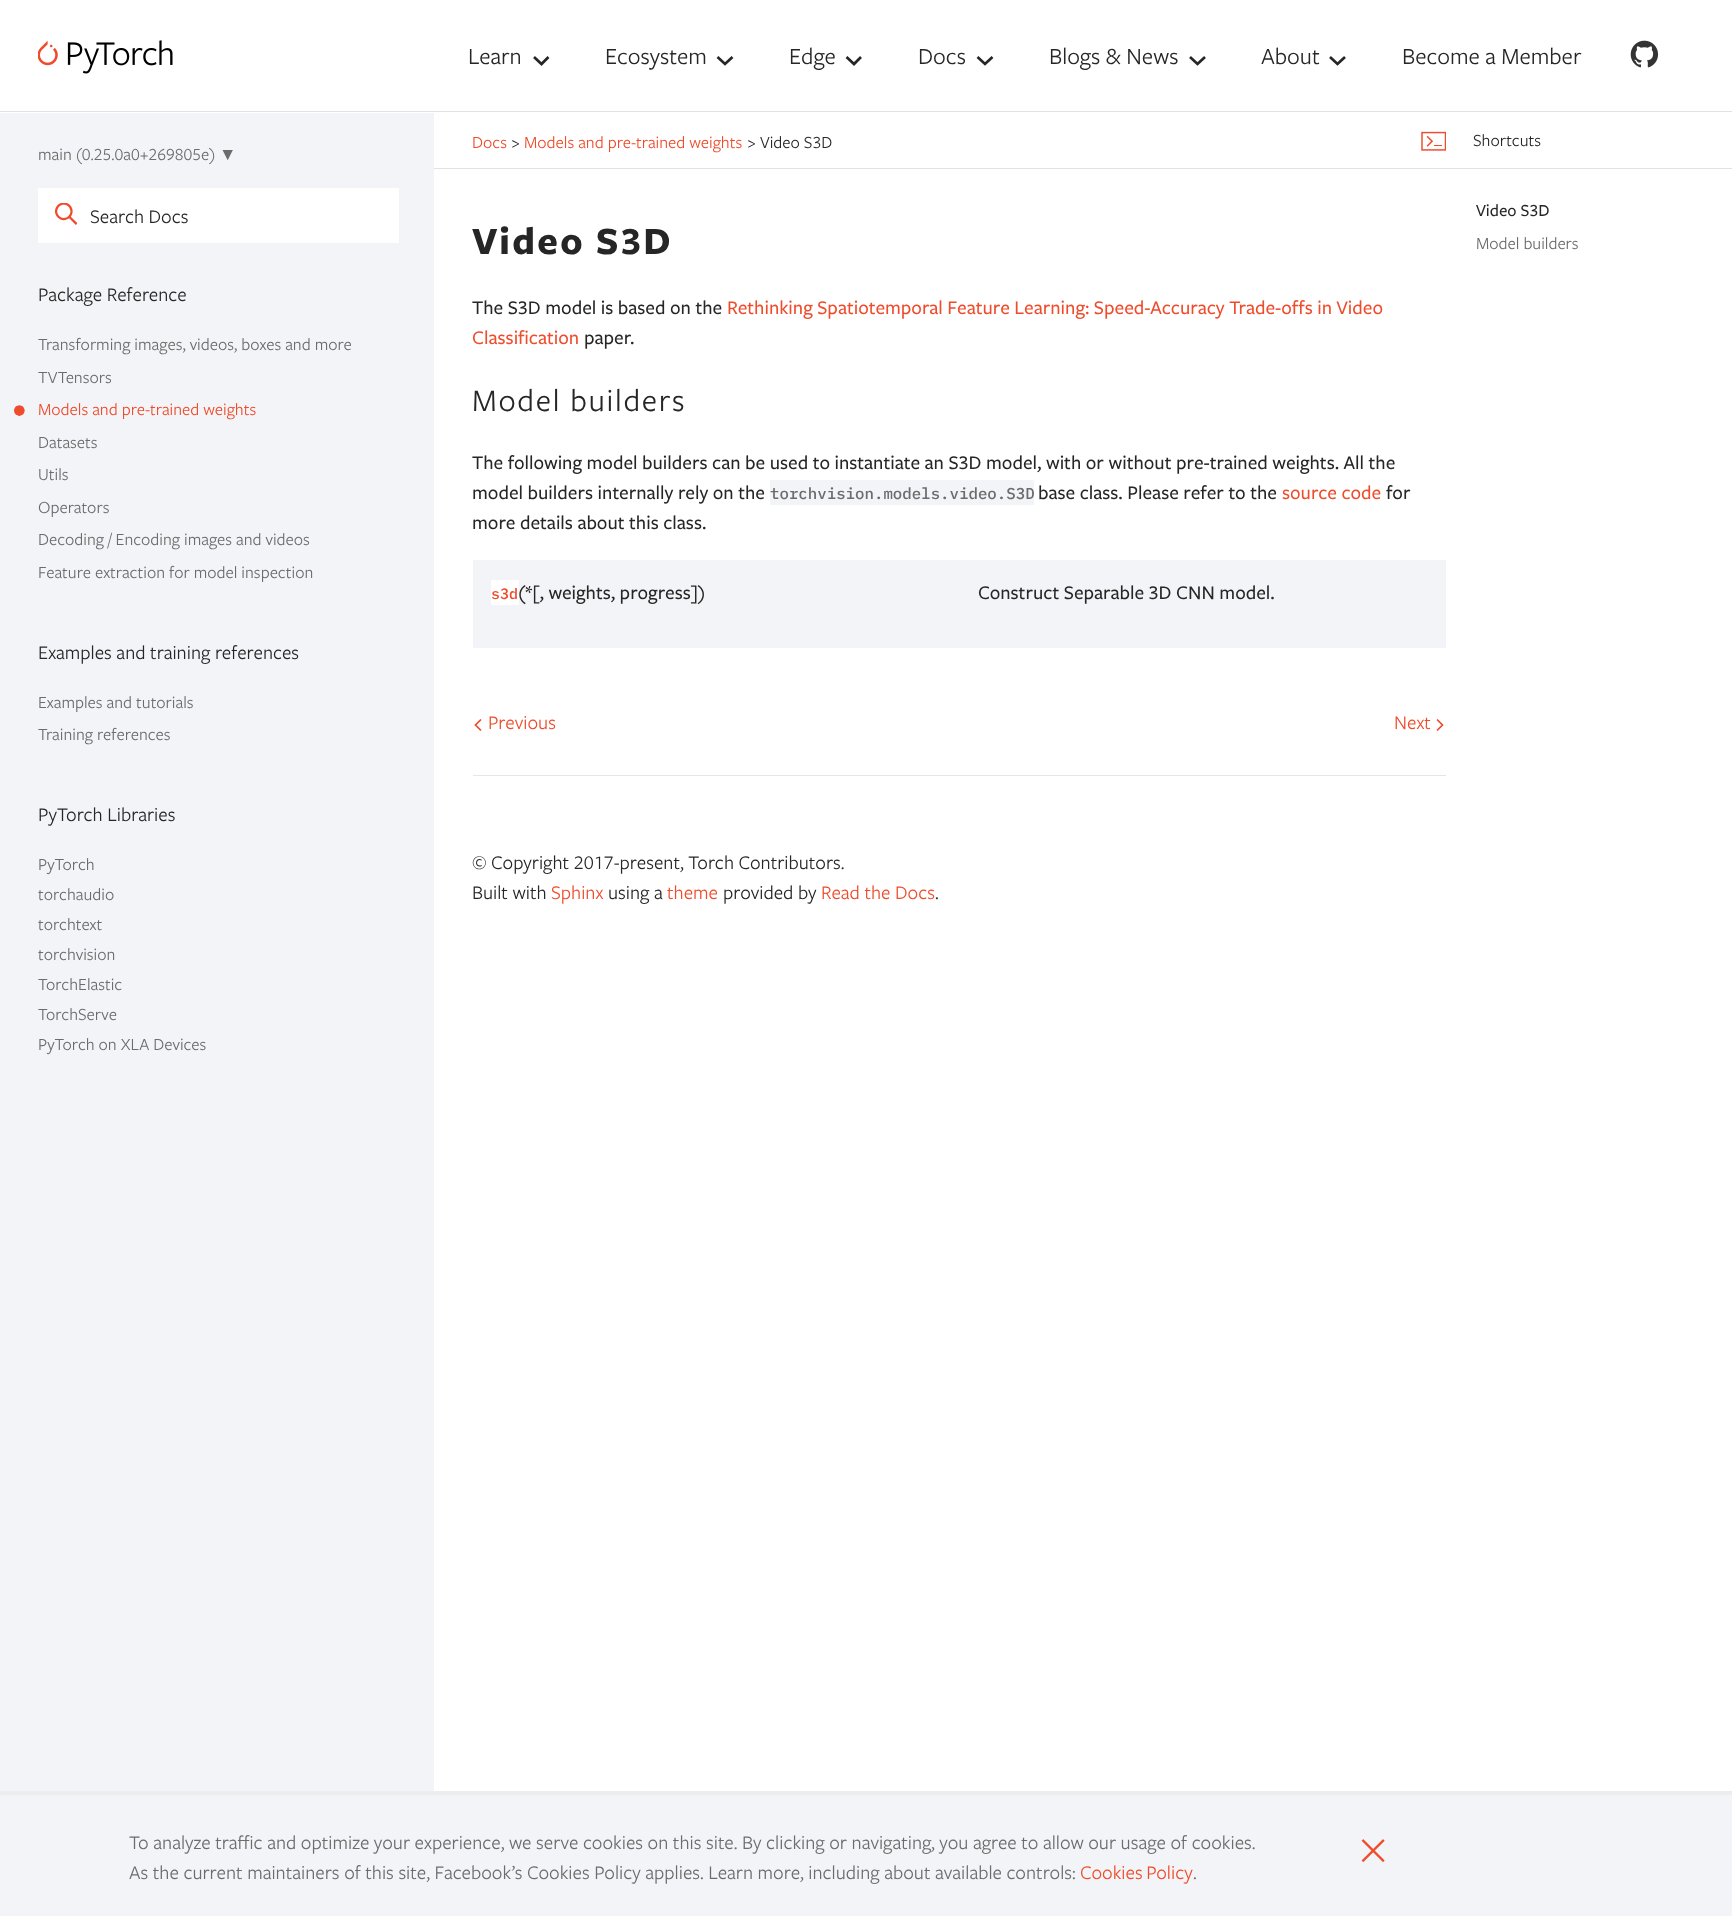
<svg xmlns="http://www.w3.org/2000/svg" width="1732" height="1916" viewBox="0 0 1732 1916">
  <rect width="100%" height="100%" fill="#ffffff"/>
  <rect x="0" y="111" width="1732" height="1" fill="#e2e2e2"/>
  <image x="38" y="40" width="135" height="34" href="img1.png"/>
  <text x="468" y="64" font-family="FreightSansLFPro" font-size="24" fill="#262626">Learn</text>
  <path d="M548.5 57L541.5 64L534 57" fill="none" stroke="#262626" stroke-width="2.7"/>
  <text x="605" y="64" font-family="FreightSansLFPro" font-size="24" fill="#262626">Ecosystem</text>
  <path d="M732.5 57L725 64L717.5 57" fill="none" stroke="#262626" stroke-width="2.7"/>
  <text x="789" y="64" font-family="FreightSansLFPro" font-size="24" fill="#262626">Edge</text>
  <path d="M861 57L854 64L846.5 57" fill="none" stroke="#262626" stroke-width="2.7"/>
  <text x="918" y="64" font-family="FreightSansLFPro" font-size="24" fill="#262626">Docs</text>
  <path d="M992.5 57L985 64L977.5 57" fill="none" stroke="#262626" stroke-width="2.7"/>
  <text x="1049" y="64" font-family="FreightSansLFPro" font-size="24" fill="#262626">Blogs &amp; News</text>
  <path d="M1205 57L1197.5 64L1190 57" fill="none" stroke="#262626" stroke-width="2.7"/>
  <text x="1261" y="64" font-family="FreightSansLFPro" font-size="24" fill="#262626">About</text>
  <path d="M1345 57L1337.5 64L1330 57" fill="none" stroke="#262626" stroke-width="2.7"/>
  <text x="1402" y="64" font-family="FreightSansLFPro" font-size="24" fill="#262626">Become a Member</text>
  <image x="1630" y="40" width="29" height="28" href="img2.png"/>
  <rect x="0" y="113" width="434" height="1678" fill="#f3f4f7"/>
  <text x="38" y="160" font-family="FreightSansLFPro" font-size="17.5" fill="#6c6c6d">main (0.25.0a0+269805e)</text>
  <text x="219" y="160" font-family="Liberation Sans" font-size="17.5" fill="#6c6c6d">▼</text>
  <rect x="38" y="188" width="361" height="55" fill="#ffffff"/>
  <image x="55" y="203" width="23" height="22" href="img3.png"/>
  <text x="90" y="223" font-family="FreightSansLFPro" font-size="20" fill="#262626">Search Docs</text>
  <text x="38" y="301" font-family="FreightSansLFPro" font-size="20" fill="#262626">Package Reference</text>
  <text x="38" y="350" font-family="FreightSansLFPro" font-size="17.5" fill="#6c6c6d">Transforming images, videos, boxes and more</text>
  <text x="38" y="383" font-family="FreightSansLFPro" font-size="17.5" fill="#6c6c6d">TVTensors</text>
  <text x="13" y="417" font-family="FreightSansLFPro" font-size="28" fill="#ee4c2c">•</text>
  <text x="38" y="415" font-family="FreightSansLFPro" font-size="17.5" fill="#ee4c2c">Models and pre-trained weights</text>
  <text x="38" y="448" font-family="FreightSansLFPro" font-size="17.5" fill="#6c6c6d">Datasets</text>
  <text x="38" y="480" font-family="FreightSansLFPro" font-size="17.5" fill="#6c6c6d">Utils</text>
  <text x="38" y="513" font-family="FreightSansLFPro" font-size="17.5" fill="#6c6c6d">Operators</text>
  <text x="38" y="545" font-family="FreightSansLFPro" font-size="17.5" fill="#6c6c6d">Decoding / Encoding images and videos</text>
  <text x="38" y="578" font-family="FreightSansLFPro" font-size="17.5" fill="#6c6c6d">Feature extraction for model inspection</text>
  <text x="38" y="659" font-family="FreightSansLFPro" font-size="20" fill="#262626">Examples and training references</text>
  <text x="38" y="708" font-family="FreightSansLFPro" font-size="17.5" fill="#6c6c6d">Examples and tutorials</text>
  <text x="38" y="740" font-family="FreightSansLFPro" font-size="17.5" fill="#6c6c6d">Training references</text>
  <text x="38" y="821" font-family="FreightSansLFPro" font-size="20" fill="#262626">PyTorch Libraries</text>
  <text x="38" y="870" font-family="FreightSansLFPro" font-size="17.5" fill="#6c6c6d">PyTorch</text>
  <text x="38" y="900" font-family="FreightSansLFPro" font-size="17.5" fill="#6c6c6d">torchaudio</text>
  <text x="38" y="930" font-family="FreightSansLFPro" font-size="17.5" fill="#6c6c6d">torchtext</text>
  <text x="38" y="960" font-family="FreightSansLFPro" font-size="17.5" fill="#6c6c6d">torchvision</text>
  <text x="38" y="990" font-family="FreightSansLFPro" font-size="17.5" fill="#6c6c6d">TorchElastic</text>
  <text x="38" y="1020" font-family="FreightSansLFPro" font-size="17.5" fill="#6c6c6d">TorchServe</text>
  <text x="38" y="1050" font-family="FreightSansLFPro" font-size="17.5" fill="#6c6c6d">PyTorch on XLA Devices</text>
  <rect x="434" y="168" width="1298" height="1" fill="#e2e2e2"/>
  <text x="472" y="148" font-family="FreightSansLFPro" font-size="17.5" fill="#ee4c2c">Docs</text>
  <text x="511" y="148" font-family="FreightSansLFPro" font-size="17.5" fill="#262626">&gt;</text>
  <text x="524" y="148" font-family="FreightSansLFPro" font-size="17.5" fill="#ee4c2c">Models and pre-trained weights</text>
  <text x="747" y="148" font-family="FreightSansLFPro" font-size="17.5" fill="#262626">&gt;</text>
  <text x="760" y="148" font-family="FreightSansLFPro" font-size="17.5" fill="#262626">Video S3D</text>
  <image x="1421" y="131" width="25" height="20" href="img4.png"/>
  <text x="1473" y="146" font-family="FreightSansLFPro" font-size="17.5" fill="#262626">Shortcuts</text>
  <text x="472" y="254" font-family="FreightSansLFPro" font-size="40" font-weight="bold" letter-spacing="2.25" fill="#262626">Video S3D</text>
  <text x="472" y="314" font-family="FreightSansLFPro" font-size="20" font-weight="500" fill="#262626">The S3D model is based on the</text>
  <text x="727" y="314" font-family="FreightSansLFPro" font-size="20" font-weight="500" fill="#ee4c2c">Rethinking Spatiotemporal Feature Learning: Speed-Accuracy Trade-offs in Video</text>
  <text x="472" y="344" font-family="FreightSansLFPro" font-size="20" font-weight="500" fill="#ee4c2c">Classification</text>
  <text x="584" y="344" font-family="FreightSansLFPro" font-size="20" font-weight="500" fill="#262626">paper.</text>
  <text x="472" y="411" font-family="FreightSansLFPro" font-size="32.5" letter-spacing="1.7" fill="#262626">Model builders</text>
  <text x="472" y="469" font-family="FreightSansLFPro" font-size="20" font-weight="500" fill="#262626">The following model builders can be used to instantiate an S3D model, with or without pre-trained weights. All the</text>
  <text x="472" y="499" font-family="FreightSansLFPro" font-size="20" font-weight="500" fill="#262626">model builders internally rely on the</text>
  <rect x="770" y="480" width="264" height="25" fill="#f3f4f7"/>
  <text x="770" y="499" font-family="IBM Plex Mono" font-size="15.75" font-weight="500" fill="#6c6c6d">torchvision.models.video.S3D</text>
  <text x="1038" y="499" font-family="FreightSansLFPro" font-size="20" font-weight="500" fill="#262626">base class. Please refer to the</text>
  <text x="1282" y="499" font-family="FreightSansLFPro" font-size="20" font-weight="500" fill="#ee4c2c">source code</text>
  <text x="1386" y="499" font-family="FreightSansLFPro" font-size="20" font-weight="500" fill="#262626">for</text>
  <text x="472" y="529" font-family="FreightSansLFPro" font-size="20" font-weight="500" fill="#262626">more details about this class.</text>
  <rect x="473" y="560" width="973" height="88" fill="#f3f4f7"/>
  <rect x="491" y="580" width="28" height="25" fill="#ffffff"/>
  <text x="491" y="599" font-family="IBM Plex Mono" font-size="15" font-weight="500" fill="#ee4c2c">s3d</text>
  <text x="518" y="599" font-family="FreightSansLFPro" font-size="20" font-weight="500" fill="#262626">(*[, weights, progress])</text>
  <text x="978" y="599" font-family="FreightSansLFPro" font-size="20" font-weight="500" fill="#262626">Construct Separable 3D CNN model.</text>
  <path d="M481 719.5L475.5 725L481 730.5" fill="none" stroke="#ee4c2c" stroke-width="1.7"/>
  <text x="488" y="729" font-family="FreightSansLFPro" font-size="20" fill="#ee4c2c">Previous</text>
  <text x="1394" y="729" font-family="FreightSansLFPro" font-size="20" fill="#ee4c2c">Next</text>
  <path d="M1437 719.5L1442.5 725L1437 730.5" fill="none" stroke="#ee4c2c" stroke-width="1.7"/>
  <rect x="473" y="775" width="973" height="1" fill="#e6e6e6"/>
  <text x="472" y="869" font-family="FreightSansLFPro" font-size="20" fill="#262626">© Copyright 2017-present, Torch Contributors.</text>
  <text x="472" y="899" font-family="FreightSansLFPro" font-size="20" fill="#262626">Built with</text>
  <text x="551" y="899" font-family="FreightSansLFPro" font-size="20" fill="#ee4c2c">Sphinx</text>
  <text x="608" y="899" font-family="FreightSansLFPro" font-size="20" fill="#262626">using a</text>
  <text x="667" y="899" font-family="FreightSansLFPro" font-size="20" fill="#ee4c2c">theme</text>
  <text x="723" y="899" font-family="FreightSansLFPro" font-size="20" fill="#262626">provided by</text>
  <text x="821" y="899" font-family="FreightSansLFPro" font-size="20" fill="#ee4c2c">Read the Docs</text>
  <text x="935" y="899" font-family="FreightSansLFPro" font-size="20" fill="#262626">.</text>
  <text x="1476" y="216" font-family="FreightSansLFPro" font-size="17.5" font-weight="500" fill="#262626">Video S3D</text>
  <text x="1476" y="249" font-family="FreightSansLFPro" font-size="17.5" fill="#6c6c6d">Model builders</text>
  <rect x="0" y="1795" width="1732" height="121" fill="#f3f4f7"/>
  <rect x="0" y="1791" width="1732" height="4" fill="#ededee"/>
  <text x="129" y="1849" font-family="FreightSansLFPro" font-size="20" fill="#6c6c6d">To analyze traffic and optimize your experience, we serve cookies on this site. By clicking or navigating, you agree to allow our usage of cookies.</text>
  <text x="129" y="1879" font-family="FreightSansLFPro" font-size="20" fill="#6c6c6d">As the current maintainers of this site, Facebook’s Cookies Policy applies. Learn more, including about available controls:</text>
  <text x="1080" y="1879" word-spacing="-1" font-family="FreightSansLFPro" font-size="20" fill="#ee4c2c">Cookies Policy</text>
  <text x="1193" y="1879" font-family="FreightSansLFPro" font-size="20" fill="#6c6c6d">.</text>
  <image x="1361" y="1839" width="24" height="24" href="img5.png"/>
</svg>
